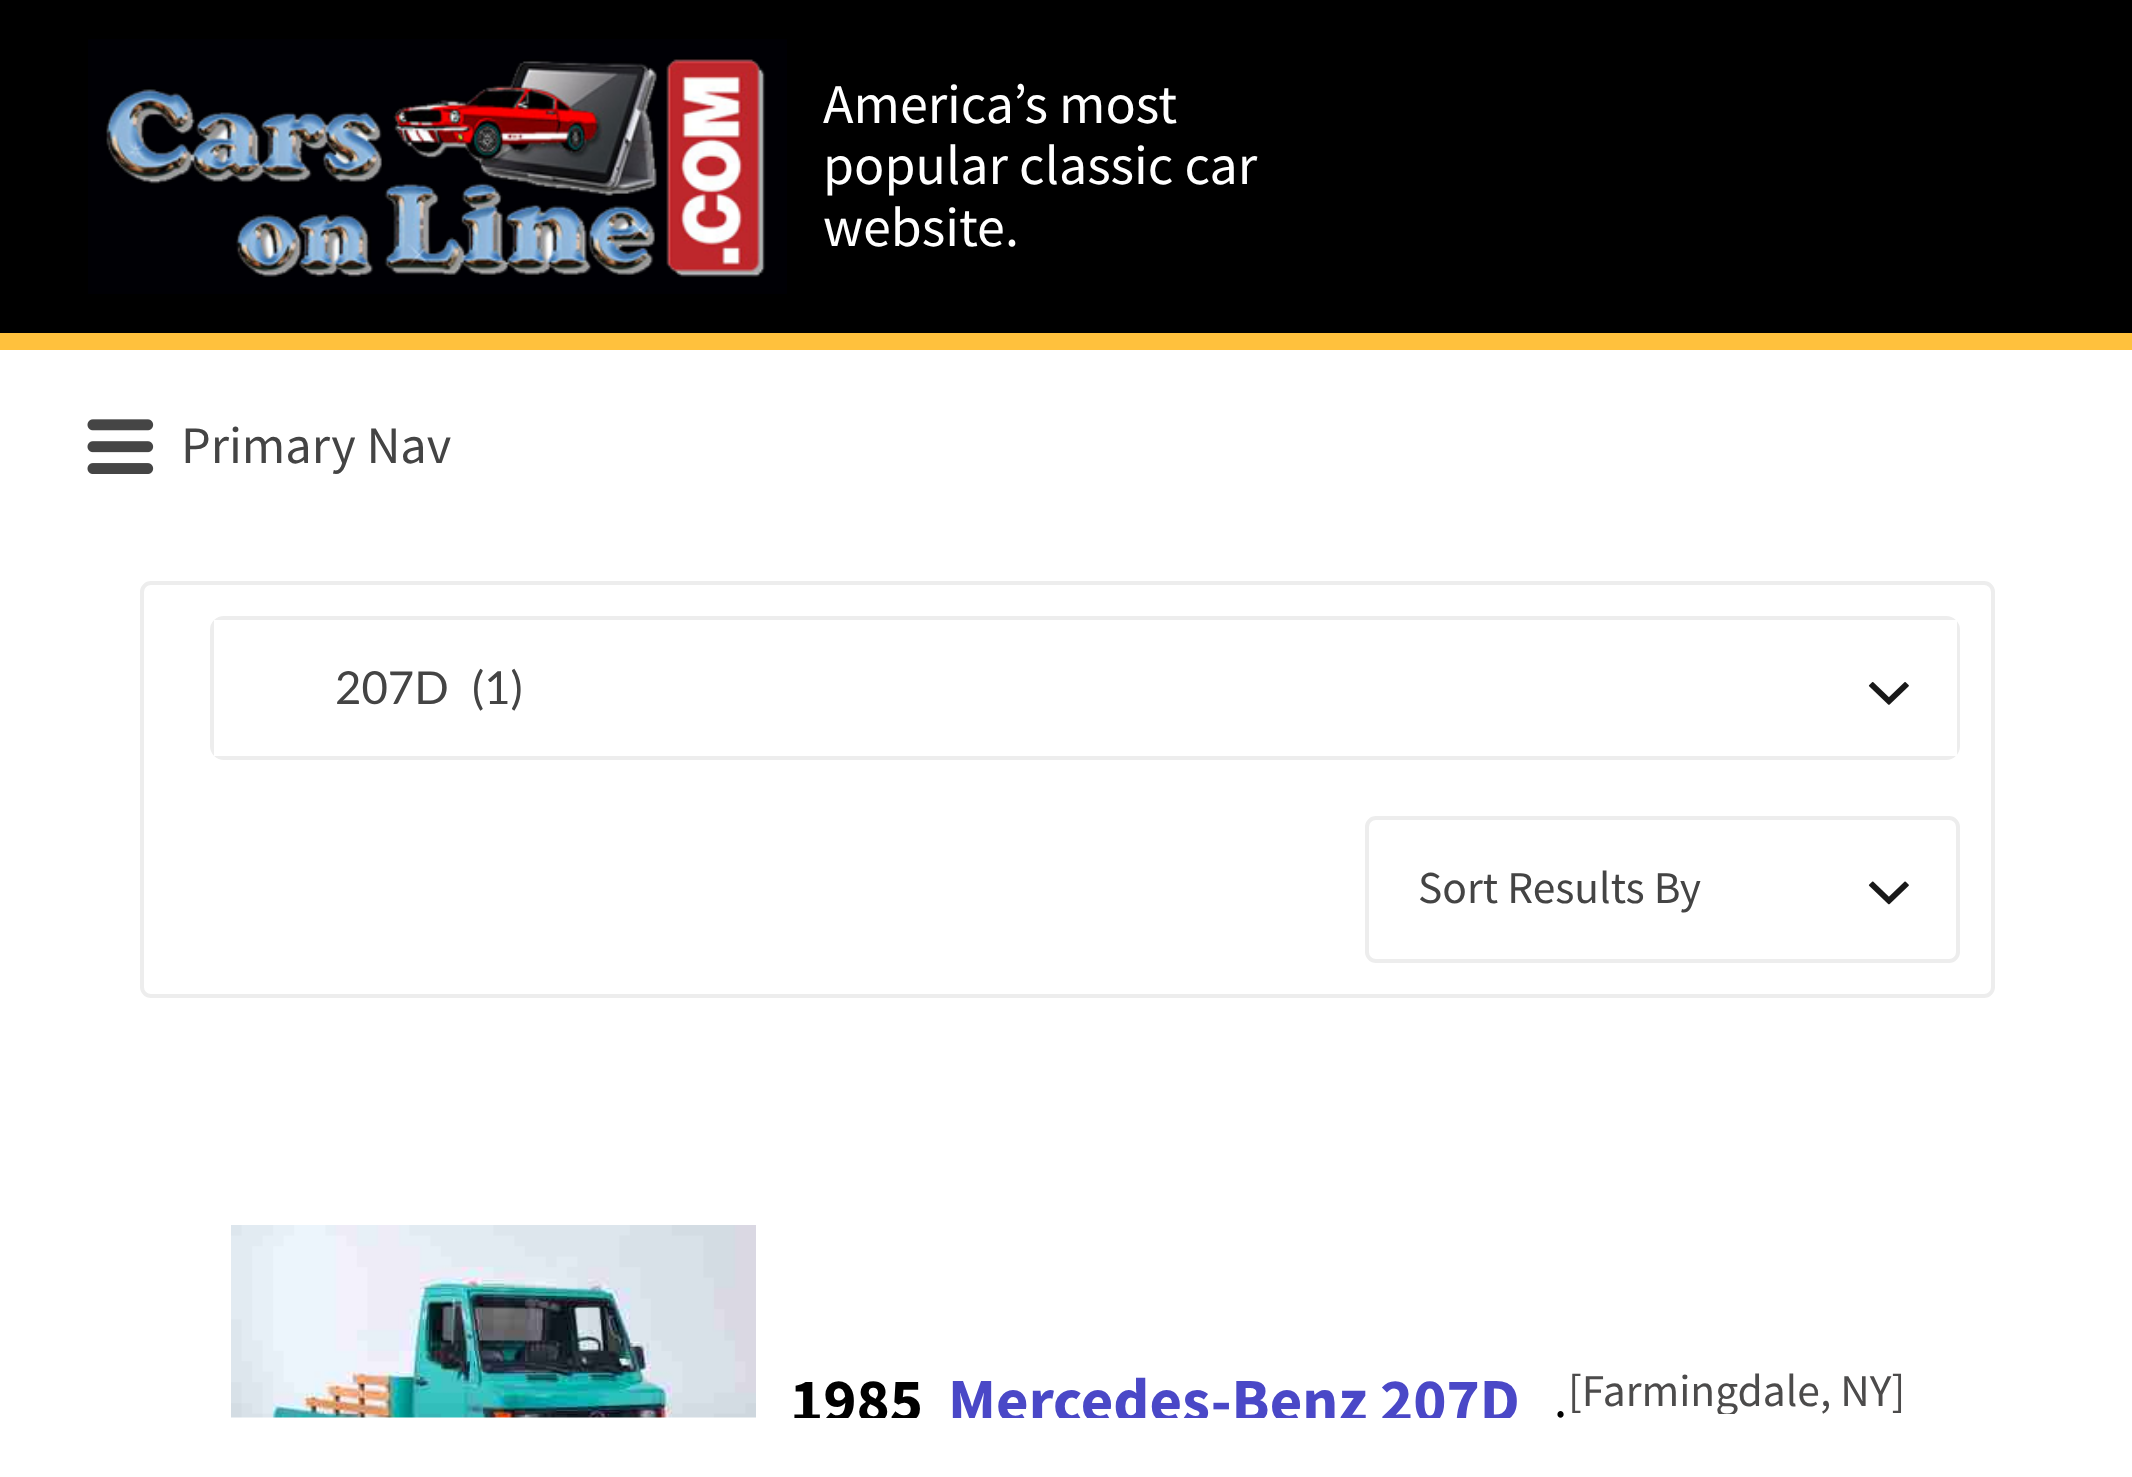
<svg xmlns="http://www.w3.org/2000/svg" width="2132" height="1477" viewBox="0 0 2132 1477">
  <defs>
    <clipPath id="clip1"><path d="M154 1068H1981C1988.5 1068 1995 1074.5 1995 1082V1418H140V1082C140 1074.5 146.5 1068 154 1068Z"/></clipPath>
    <clipPath id="clip2"><rect x="1568" y="1369" width="336" height="45"/></clipPath>
  </defs>
  <rect width="100%" height="100%" fill="#ffffff"/>
  <rect x="0" y="0" width="2132" height="333" fill="#000000"/>
  <rect x="0" y="333" width="2132" height="17" fill="#ffc13d"/>
  <image x="88" y="39" width="699" height="255" href="img1.png"/>
  <text x="823" y="123" font-family="Source Sans Pro" font-size="56" fill="#ffffff">America’s most</text>
  <text x="823" y="184" font-family="Source Sans Pro" font-size="56" fill="#ffffff">popular classic car</text>
  <text x="823" y="246" font-family="Source Sans Pro" font-size="56" fill="#ffffff">website.</text>
  <image x="87" y="419" width="67" height="55" href="img2.png"/>
  <text x="181" y="463" font-family="Source Sans Pro" font-size="52.5" fill="#444444">Primary Nav</text>
  <rect x="142" y="583" width="1851" height="413" rx="9" fill="none" stroke="#ededed" stroke-width="4"/>
  <rect x="212" y="618" width="1746" height="140" rx="12" fill="none" stroke="#ededed" stroke-width="4"/>
  <rect x="214" y="620" width="1743" height="136" fill="#ffffff"/>
  <text x="335" y="704" font-family="Lato" font-size="45.5" fill="#444444" xml:space="preserve">207D  (1)</text>
  <image x="1868" y="682" width="41" height="23" href="img3.png"/>
  <rect x="1367" y="818" width="591" height="143" rx="9" fill="none" stroke="#ededed" stroke-width="4"/>
  <text x="1418" y="903" font-family="Source Sans Pro" font-size="45.5" fill="#444444">Sort Results By</text>
  <image x="1868" y="881" width="41" height="24" href="img4.png"/>
  <image x="231" y="1225" width="525" height="193" href="img5.png"/>
  <g clip-path="url(#clip1)">
    <text x="790" y="1422" font-family="Source Sans Pro" font-size="63" font-weight="bold" fill="#000000">1985</text>
    <text x="948" y="1422" font-family="Source Sans Pro" font-size="63" font-weight="bold" fill="#4a48c7">Mercedes-Benz 207D</text>
  </g>
  <text x="1554" y="1417" font-family="Source Sans Pro" font-size="52.5" fill="#000000">.</text>
  <g clip-path="url(#clip2)">
    <text x="1568" y="1406" font-family="Source Sans Pro" font-size="45.5" fill="#4c4b4b">[Farmingdale, NY]</text>
  </g>
</svg>
